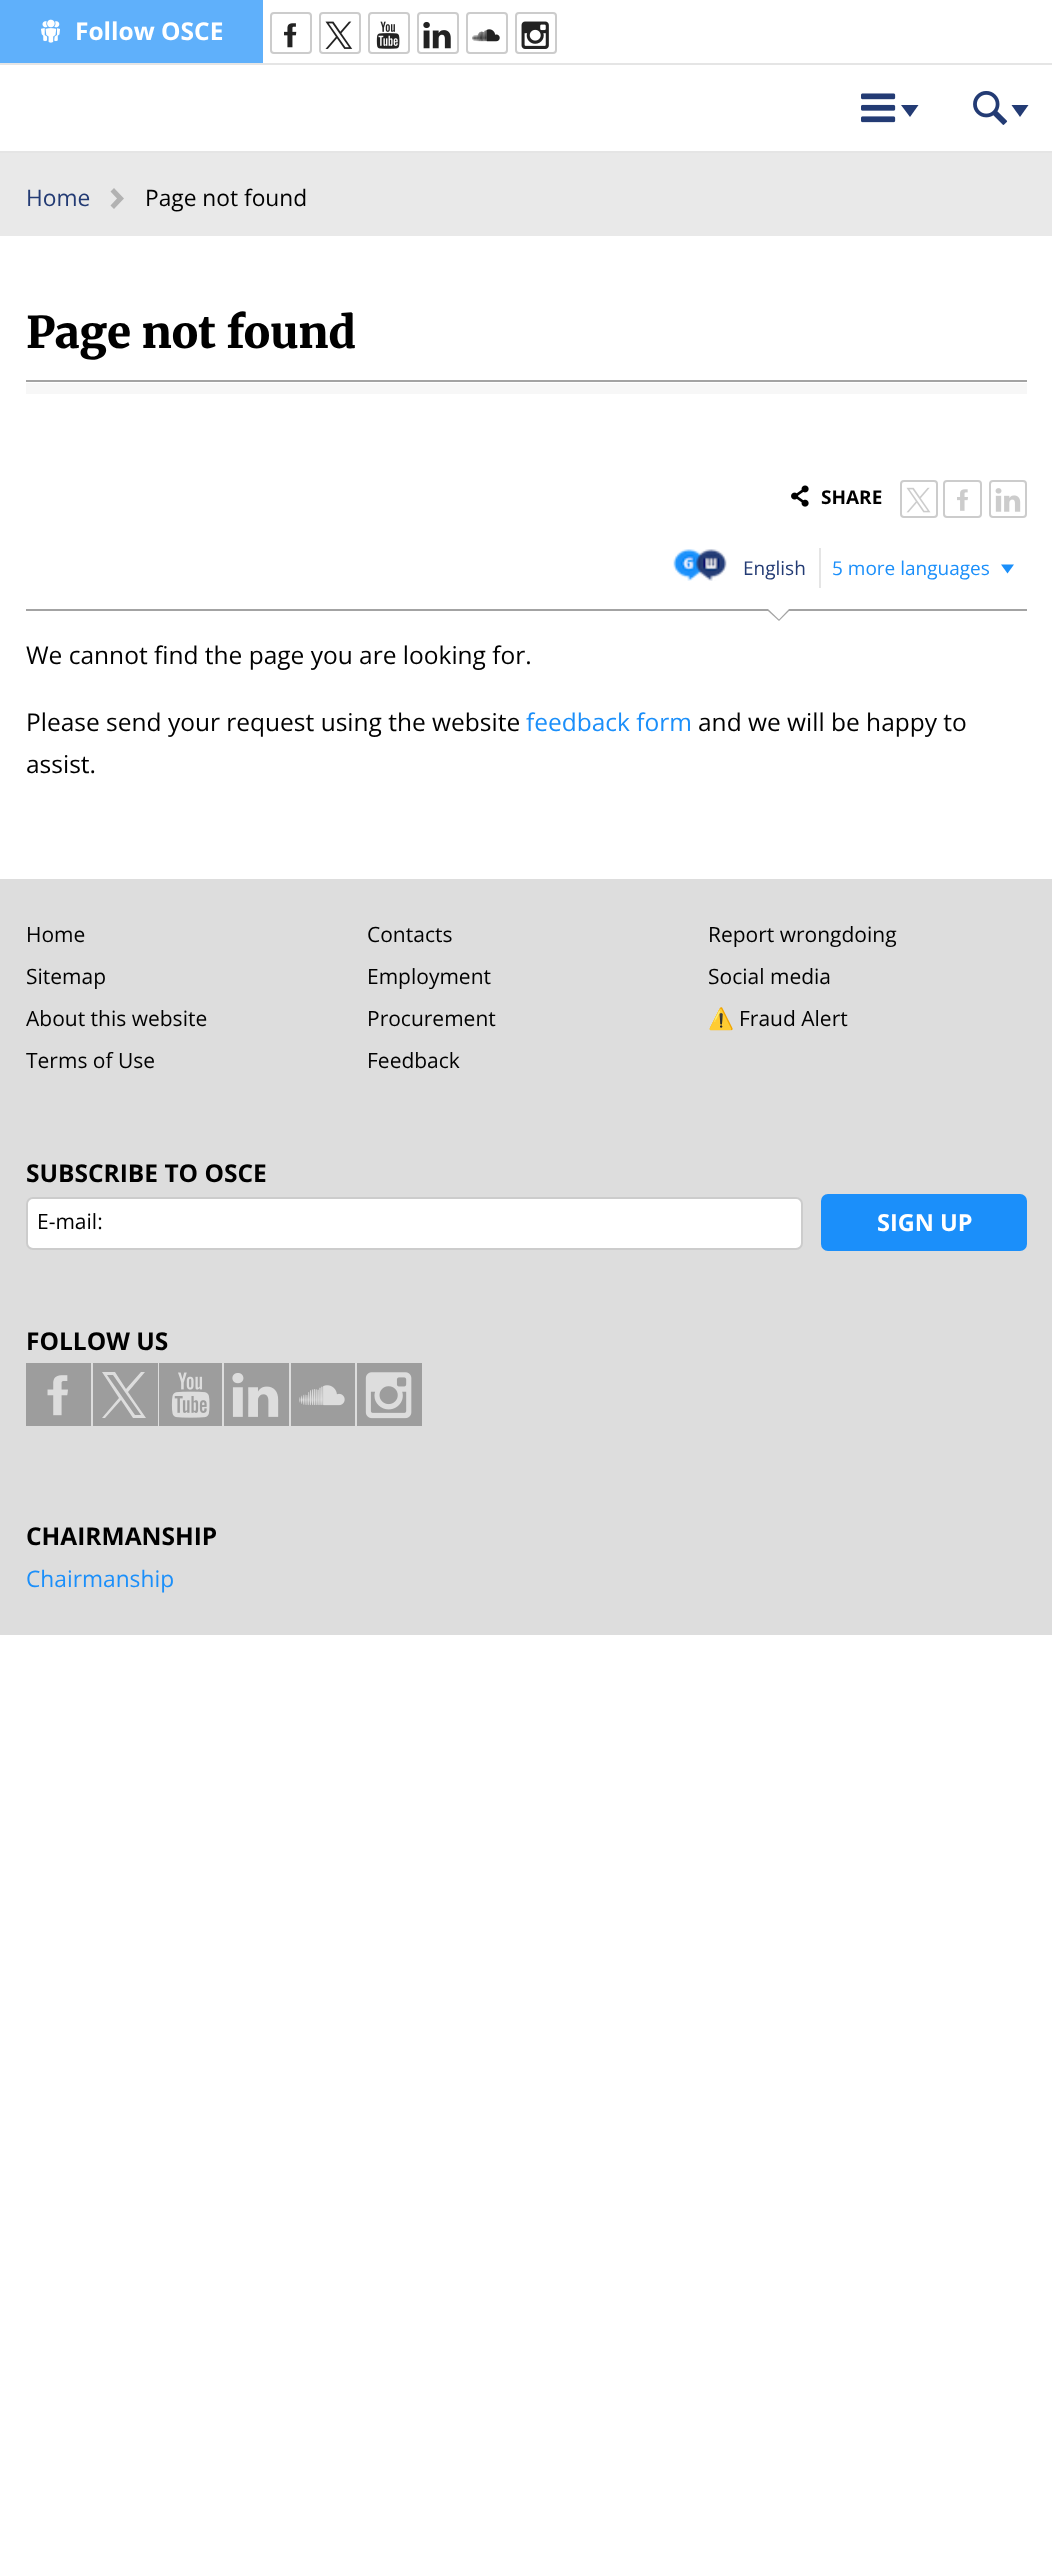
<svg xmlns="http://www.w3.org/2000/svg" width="1052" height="2561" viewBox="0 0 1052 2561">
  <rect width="100%" height="100%" fill="#ffffff"/>
  <rect x="0" y="0" width="263" height="63" fill="#5fb0fb"/>
  <image x="41" y="19" width="19" height="24" href="img1.png"/>
  <text x="75" y="40" font-family="Open Sans" font-size="24.5" font-weight="bold" fill="#ffffff">Follow OSCE</text>
  <rect x="271" y="13" width="40" height="40" rx="3" fill="none" stroke="#cccccc" stroke-width="2"/>
  <image x="284" y="23" width="13" height="25" href="img2.png"/>
  <rect x="320" y="13" width="40" height="40" rx="3" fill="none" stroke="#cccccc" stroke-width="2"/>
  <image x="325" y="21" width="28" height="28" href="img3.png"/>
  <rect x="369" y="13" width="40" height="40" rx="3" fill="none" stroke="#cccccc" stroke-width="2"/>
  <image x="376" y="21" width="24" height="28" href="img4.png"/>
  <rect x="418" y="13" width="40" height="40" rx="3" fill="none" stroke="#cccccc" stroke-width="2"/>
  <image x="423" y="21" width="28" height="28" href="img5.png"/>
  <rect x="467" y="13" width="40" height="40" rx="3" fill="none" stroke="#cccccc" stroke-width="2"/>
  <image x="472" y="29" width="28" height="13" href="img6.png"/>
  <rect x="516" y="13" width="40" height="40" rx="3" fill="none" stroke="#cccccc" stroke-width="2"/>
  <image x="521" y="21" width="28" height="28" href="img7.png"/>
  <rect x="0" y="63" width="1052" height="2" fill="#e5e5e5"/>
  <image x="861" y="93" width="35" height="30" href="img8.png"/>
  <path d="M901 105H918.5L910 117Z" fill="#233b74"/>
  <image x="973" y="91" width="35" height="34" href="img9.png"/>
  <path d="M1011.5 105H1028.5L1020 117Z" fill="#233b74"/>
  <rect x="0" y="153" width="1052" height="83" fill="#e9e9e9"/>
  <rect x="0" y="151" width="1052" height="2" fill="#e5e5e5"/>
  <text x="26" y="206" font-family="Open Sans" font-size="22.75" fill="#233b74">Home</text>
  <path d="M114 209L110.5 205.5L117 198.5L110.5 191.5L114 188L124 198.5Z" fill="#b2b2b2"/>
  <text x="145" y="206" font-family="Open Sans" font-size="22.75" fill="#000000">Page not found</text>
  <text x="26" y="348" font-family="Merriweather" font-size="43.75" font-weight="300" fill="#000000">Page not found</text>
  <rect x="26" y="380" width="1001" height="2" fill="#a3a3a3"/>
  <rect x="26" y="609" width="1001" height="2" fill="#a3a3a3"/>
  <rect x="26" y="383" width="1001" height="11" fill="#f7f7f7"/>
  <image x="791" y="485" width="18" height="22" href="img10.png"/>
  <text x="821" y="504" font-family="Open Sans" font-size="19" font-weight="bold" fill="#000000">SHARE</text>
  <rect x="901" y="481" width="36" height="36" rx="3" fill="none" stroke="#cccccc" stroke-width="2"/>
  <image x="906" y="487" width="25" height="26" href="img11.png"/>
  <rect x="944" y="481" width="37" height="36" rx="3" fill="none" stroke="#cccccc" stroke-width="2"/>
  <image x="957" y="489" width="11" height="22" href="img12.png"/>
  <rect x="990" y="481" width="36" height="36" rx="3" fill="none" stroke="#cccccc" stroke-width="2"/>
  <image x="995" y="488" width="26" height="24" href="img13.png"/>
  <image x="673" y="549" width="54" height="32" href="img14.png"/>
  <rect x="819" y="548" width="2" height="40" fill="#e5e5e5"/>
  <text x="743" y="575" font-family="Open Sans" font-size="19" fill="#233b74">English</text>
  <path d="M768 611H789L779 621Z" fill="#a3a3a3"/>
  <path d="M768 609H789L779 619.5Z" fill="#ffffff"/>
  <text x="832" y="575" font-family="Open Sans" font-size="19" fill="#1b8ffa">5 more languages</text>
  <path d="M1001 564.5H1014L1007.5 573.5Z" fill="#1b8ffa"/>
  <text x="26" y="664" font-family="Open Sans" font-size="24.5" fill="#000000">We cannot find the page you are looking for.</text>
  <text x="26" y="731" font-family="Open Sans" font-size="24.5" fill="#000000">Please send your request using the website</text>
  <text x="526" y="731" font-family="Open Sans" font-size="24.5" fill="#1b8ffa">feedback form</text>
  <text x="698" y="731" font-family="Open Sans" font-size="24.5" fill="#000000">and we will be happy to</text>
  <text x="26" y="773" font-family="Open Sans" font-size="24.5" fill="#000000">assist.</text>
  <rect x="0" y="879" width="1052" height="756" fill="#dddddd"/>
  <text x="26" y="942" font-family="Open Sans" font-size="21" fill="#000000">Home</text>
  <text x="367" y="942" font-family="Open Sans" font-size="21" fill="#000000">Contacts</text>
  <text x="708" y="942" font-family="Open Sans" font-size="21" fill="#000000">Report wrongdoing</text>
  <text x="26" y="984" font-family="Open Sans" font-size="21" fill="#000000">Sitemap</text>
  <text x="367" y="984" font-family="Open Sans" font-size="21" fill="#000000">Employment</text>
  <text x="708" y="984" font-family="Open Sans" font-size="21" fill="#000000">Social media</text>
  <text x="26" y="1026" font-family="Open Sans" font-size="21" fill="#000000">About this website</text>
  <text x="367" y="1026" font-family="Open Sans" font-size="21" fill="#000000">Procurement</text>
  <text x="708" y="1026" font-family="Noto Color Emoji" font-size="21" fill="#000000">⚠️</text>
  <text x="739" y="1026" font-family="Open Sans" font-size="21" fill="#000000">Fraud Alert</text>
  <text x="26" y="1068" font-family="Open Sans" font-size="21" fill="#000000">Terms of Use</text>
  <text x="367" y="1068" font-family="Open Sans" font-size="21" fill="#000000">Feedback</text>
  <text x="26" y="1182" font-family="Open Sans" font-size="24.5" font-weight="bold" fill="#000000">SUBSCRIBE TO OSCE</text>
  <rect x="27" y="1198" width="775" height="51" rx="6" fill="#ffffff" stroke="#cccccc" stroke-width="2"/>
  <text x="37" y="1229" font-family="Open Sans" font-size="21" fill="#000000">E-mail:</text>
  <rect x="822" y="1195" width="204" height="55" rx="6" fill="#1b8ffa" stroke="#1b8ffa" stroke-width="2"/>
  <text x="877" y="1231" font-family="Open Sans" font-size="23.5" font-weight="bold" fill="#ffffff">SIGN UP</text>
  <text x="26" y="1350" font-family="Open Sans" font-size="24.5" font-weight="bold" fill="#000000">FOLLOW US</text>
  <rect x="26" y="1363" width="65" height="63" fill="#9d9d9d"/>
  <image x="47" y="1375" width="21" height="41" href="img15.png"/>
  <rect x="93" y="1363" width="65" height="63" fill="#9d9d9d"/>
  <path d="M128 1392L145 1372H141L126 1389L115 1372H102L119 1398L102 1418H105L121 1400L133 1418H146ZM123 1398L107 1375H113L141 1415H135Z" fill="#dddddd"/>
  <rect x="159" y="1363" width="63" height="63" fill="#9d9d9d"/>
  <image x="171" y="1372" width="39" height="46" href="img16.png"/>
  <rect x="224" y="1363" width="65" height="63" fill="#9d9d9d"/>
  <image x="232" y="1373" width="47" height="44" href="img17.png"/>
  <rect x="291" y="1363" width="64" height="63" fill="#9d9d9d"/>
  <image x="299" y="1385" width="46" height="21" href="img18.png"/>
  <rect x="357" y="1363" width="65" height="63" fill="#9d9d9d"/>
  <image x="365" y="1372" width="47" height="47" href="img19.png"/>
  <text x="26" y="1545" font-family="Open Sans" font-size="24.5" font-weight="bold" fill="#000000">CHAIRMANSHIP</text>
  <text x="26" y="1587" font-family="Open Sans" font-size="22.75" fill="#1b8ffa">Chairmanship</text>
</svg>
